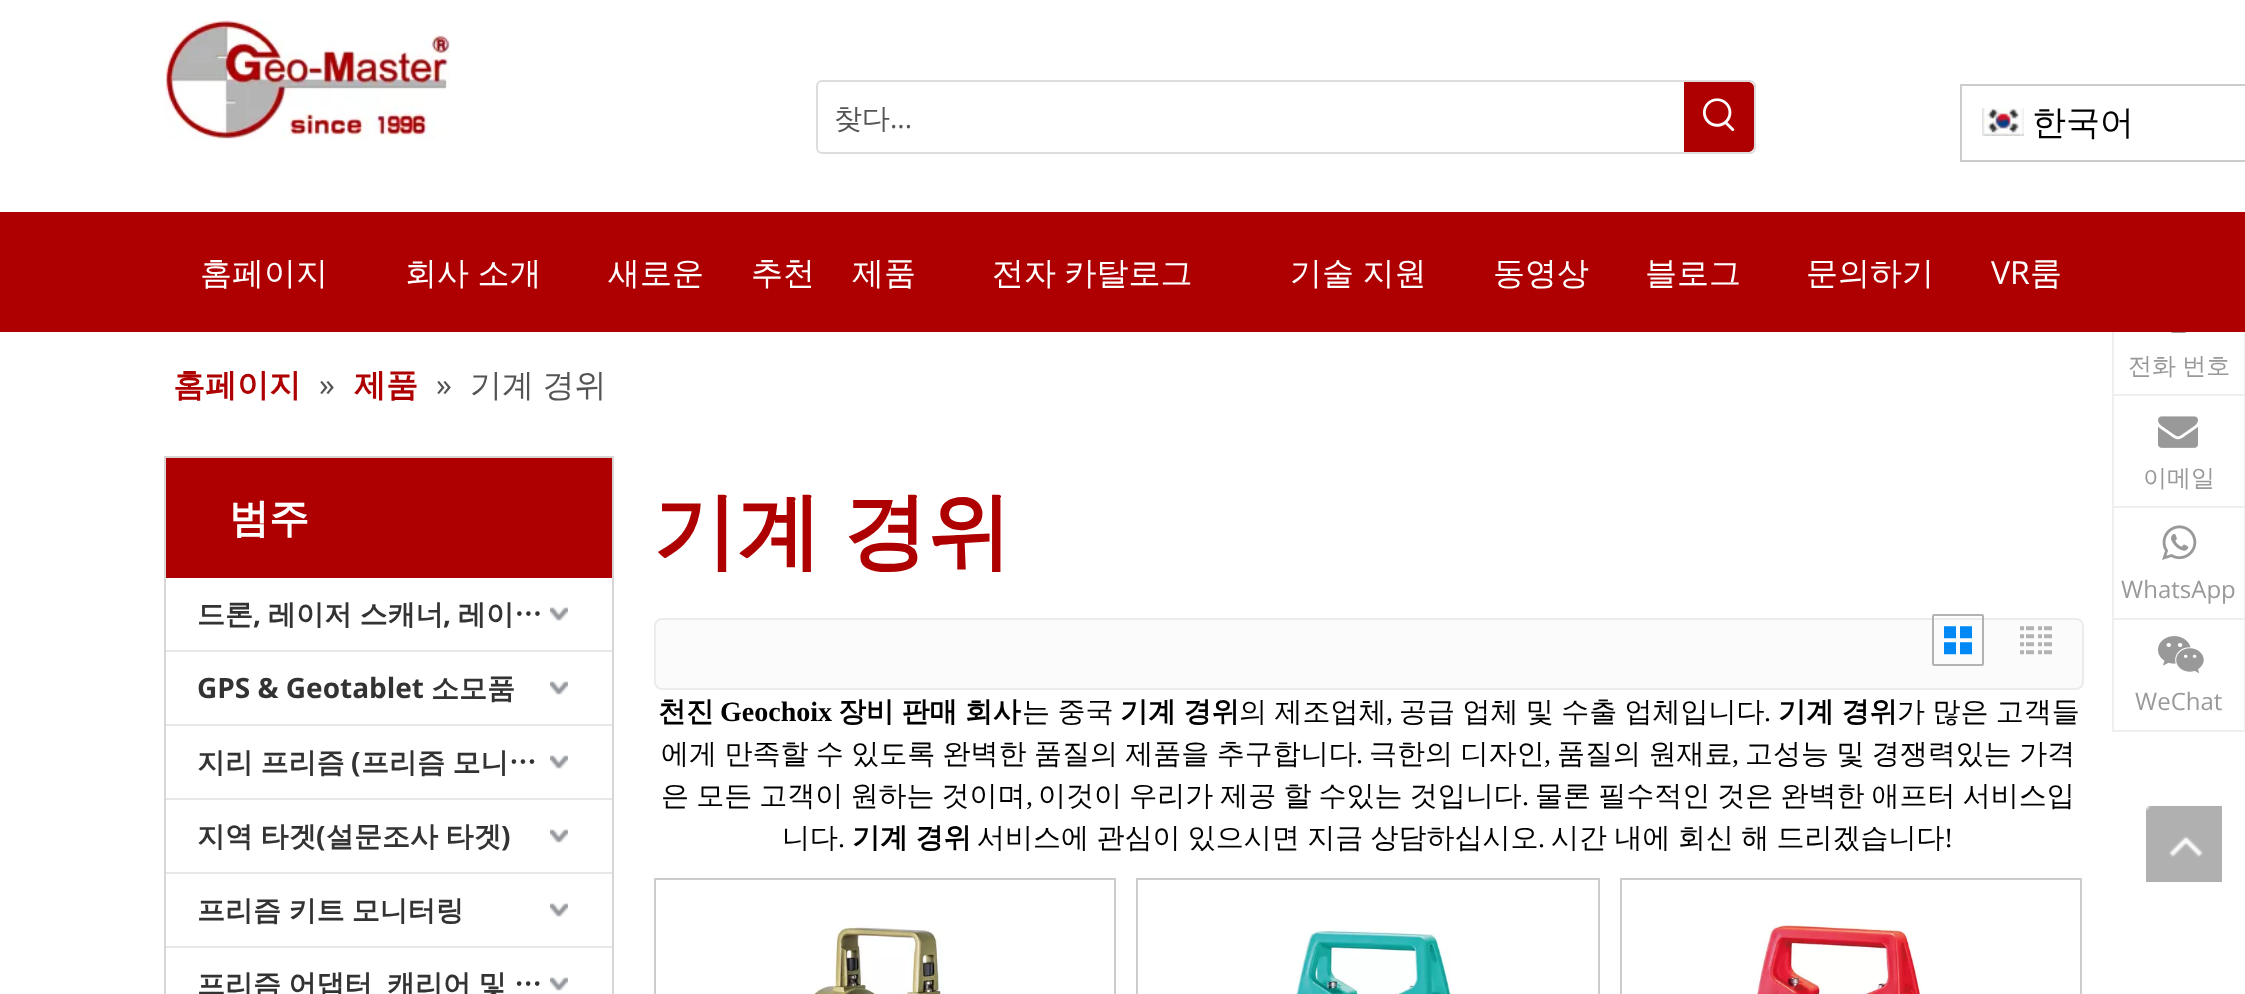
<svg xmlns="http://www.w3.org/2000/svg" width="2245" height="994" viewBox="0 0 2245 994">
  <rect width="100%" height="100%" fill="#ffffff"/>
  <image x="164" y="20" width="286" height="120" href="img1.png"/>
  <rect x="817" y="81" width="938" height="72" rx="5" fill="none" stroke="#dddddd" stroke-width="2"/>
  <text x="834" y="128" font-family="WenQuanYi Zen Hei" font-size="28" font-weight="500" fill="#545454">찾다</text>
  <text x="890" y="128" font-family="Open Sans" font-size="28" fill="#545454">...</text>
  <path d="M1684 82H1748C1751.5 82 1754 84.5 1754 88V146C1754 149.5 1751.5 152 1748 152H1684Z" fill="#af0001"/>
  <image x="1702" y="98" width="33" height="34" href="img2.png"/>
  <rect x="1961" y="85" width="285" height="76" fill="none" stroke="#cccccc" stroke-width="2"/>
  <image x="1982" y="108" width="42" height="28" href="img3.png"/>
  <text x="2032" y="134" font-family="WenQuanYi Zen Hei" font-size="34" font-weight="500" fill="#000000">한국어</text>
  <rect x="0" y="212" width="2245" height="120" fill="#af0001"/>
  <text x="200" y="284" font-family="WenQuanYi Zen Hei" font-size="32" font-weight="500" fill="#ffffff">홈페이지</text>
  <text x="405" y="284" word-spacing="-1" font-family="WenQuanYi Zen Hei" font-size="32" font-weight="500" fill="#ffffff">회사 소개</text>
  <text x="608" y="284" font-family="WenQuanYi Zen Hei" font-size="32" font-weight="500" fill="#ffffff">새로운</text>
  <text x="751" y="284" font-family="WenQuanYi Zen Hei" font-size="32" font-weight="500" fill="#ffffff">추천</text>
  <text x="852" y="284" font-family="WenQuanYi Zen Hei" font-size="32" font-weight="500" fill="#ffffff">제품</text>
  <text x="992" y="284" word-spacing="-1" font-family="WenQuanYi Zen Hei" font-size="32" font-weight="500" fill="#ffffff">전자 카탈로그</text>
  <text x="1290" y="284" word-spacing="-1" font-family="WenQuanYi Zen Hei" font-size="32" font-weight="500" fill="#ffffff">기술 지원</text>
  <text x="1493" y="284" font-family="WenQuanYi Zen Hei" font-size="32" font-weight="500" fill="#ffffff">동영상</text>
  <text x="1645" y="284" font-family="WenQuanYi Zen Hei" font-size="32" font-weight="500" fill="#ffffff">블로그</text>
  <text x="1806" y="284" font-family="WenQuanYi Zen Hei" font-size="32" font-weight="500" fill="#ffffff">문의하기</text>
  <text x="1991" y="284" font-family="Open Sans" font-size="32" fill="#ffffff">VR</text>
  <text x="2030" y="284" font-family="WenQuanYi Zen Hei" font-size="32" font-weight="500" fill="#ffffff">룸</text>
  <text x="173" y="396" font-family="WenQuanYi Zen Hei" font-size="32" font-weight="bold" fill="#af0001">홈페이지</text>
  <text x="319" y="396" font-family="Open Sans" font-size="32" fill="#545454">»</text>
  <text x="354" y="396" font-family="WenQuanYi Zen Hei" font-size="32" font-weight="bold" fill="#af0001">제품</text>
  <text x="436" y="396" font-family="Open Sans" font-size="32" fill="#545454">»</text>
  <text x="470" y="396" word-spacing="-1" font-family="WenQuanYi Zen Hei" font-size="32" font-weight="500" fill="#545454">기계 경위</text>
  <rect x="165" y="457" width="448" height="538" fill="none" stroke="#d6d6d6" stroke-width="2"/>
  <rect x="166" y="458" width="446" height="120" fill="#af0001"/>
  <text x="229" y="532" font-family="WenQuanYi Zen Hei" font-size="40" font-weight="bold" fill="#ffffff">범주</text>
  <text x="197" y="624" font-family="WenQuanYi Zen Hei" font-size="28" font-weight="bold" fill="#333333">드론</text>
  <text x="253" y="624" font-family="Open Sans" font-size="28" font-weight="bold" fill="#333333">,</text>
  <text x="268" y="624" word-spacing="-1" font-family="WenQuanYi Zen Hei" font-size="28" font-weight="bold" fill="#333333">레이저 스캐너</text>
  <text x="443" y="624" font-family="Open Sans" font-size="28" font-weight="bold" fill="#333333">,</text>
  <text x="458" y="624" word-spacing="-1" font-family="WenQuanYi Zen Hei" font-size="28" font-weight="bold" fill="#333333">레이…</text>
  <image x="550" y="607" width="18" height="14" href="img4.png"/>
  <rect x="166" y="650" width="446" height="2" fill="#e7e7e7"/>
  <text x="197" y="698" font-family="Open Sans" font-size="28" font-weight="bold" fill="#333333">GPS &amp; Geotablet</text>
  <text x="431" y="698" font-family="WenQuanYi Zen Hei" font-size="28" font-weight="bold" fill="#333333">소모품</text>
  <image x="550" y="681" width="18" height="14" href="img4.png"/>
  <rect x="166" y="724" width="446" height="2" fill="#e7e7e7"/>
  <text x="197" y="772" word-spacing="-1" font-family="WenQuanYi Zen Hei" font-size="28" font-weight="bold" fill="#333333">지리 프리즘</text>
  <text x="351" y="772" font-family="Open Sans" font-size="28" font-weight="bold" fill="#333333">(</text>
  <text x="361" y="772" word-spacing="-1" font-family="WenQuanYi Zen Hei" font-size="28" font-weight="bold" fill="#333333">프리즘 모니…</text>
  <image x="550" y="755" width="18" height="14" href="img4.png"/>
  <rect x="166" y="798" width="446" height="2" fill="#e7e7e7"/>
  <text x="197" y="846" word-spacing="-1" font-family="WenQuanYi Zen Hei" font-size="28" font-weight="bold" fill="#333333">지역 타겟</text>
  <text x="316" y="846" font-family="Open Sans" font-size="28" font-weight="bold" fill="#333333">(</text>
  <text x="326" y="846" word-spacing="-1" font-family="WenQuanYi Zen Hei" font-size="28" font-weight="bold" fill="#333333">설문조사 타겟</text>
  <text x="501" y="846" font-family="Open Sans" font-size="28" font-weight="bold" fill="#333333">)</text>
  <image x="550" y="829" width="18" height="14" href="img4.png"/>
  <rect x="166" y="872" width="446" height="2" fill="#e7e7e7"/>
  <text x="197" y="920" word-spacing="-1" font-family="WenQuanYi Zen Hei" font-size="28" font-weight="bold" fill="#333333">프리즘 키트 모니터링</text>
  <image x="550" y="903" width="18" height="14" href="img4.png"/>
  <rect x="166" y="946" width="446" height="2" fill="#e7e7e7"/>
  <text x="197" y="994" word-spacing="-1" font-family="WenQuanYi Zen Hei" font-size="28" font-weight="bold" fill="#333333">프리즘 어댑터</text>
  <text x="387" y="994" word-spacing="-1" font-family="WenQuanYi Zen Hei" font-size="28" font-weight="bold" fill="#333333">캐리어 및 …</text>
  <image x="550" y="977" width="18" height="14" href="img4.png"/>
  <text x="653" y="560" word-spacing="-3" font-family="WenQuanYi Zen Hei" font-size="84" font-weight="bold" fill="#af0001">기계 경위</text>
  <rect x="655" y="619" width="1428" height="70" rx="7" fill="#fbfbfb" stroke="#ececec" stroke-width="2"/>
  <rect x="1933" y="615" width="50" height="50" rx="1" fill="none" stroke="#b3b3b3" stroke-width="2"/>
  <image x="1944" y="626" width="28" height="29" href="img5.png"/>
  <image x="2020" y="626" width="32" height="29" href="img6.png"/>
  <text x="658" y="721" font-family="WenQuanYi Zen Hei" font-size="28" font-weight="bold" fill="#000000">천진</text>
  <text x="720" y="721" font-family="Liberation Serif" font-size="28" font-weight="bold" fill="#000000">Geochoix</text>
  <text x="838" y="721" word-spacing="-1" font-family="WenQuanYi Zen Hei" font-size="28" font-weight="bold" fill="#000000">장비 판매 회사</text>
  <text x="1022" y="721" word-spacing="-1" font-family="WenQuanYi Zen Hei" font-size="28" font-weight="500" fill="#000000">는 중국</text>
  <text x="1120" y="721" word-spacing="-1" font-family="WenQuanYi Zen Hei" font-size="28" font-weight="bold" fill="#000000">기계 경위</text>
  <text x="1239" y="721" word-spacing="-1" font-family="WenQuanYi Zen Hei" font-size="28" font-weight="500" fill="#000000">의 제조업체</text>
  <text x="1386" y="721" font-family="Liberation Serif" font-size="28" fill="#000000">,</text>
  <text x="1399" y="721" word-spacing="-1" font-family="WenQuanYi Zen Hei" font-size="28" font-weight="500" fill="#000000">공급 업체 및 수출 업체입니다</text>
  <text x="1764" y="721" font-family="Liberation Serif" font-size="28" fill="#000000">.</text>
  <text x="1778" y="721" word-spacing="-1" font-family="WenQuanYi Zen Hei" font-size="28" font-weight="bold" fill="#000000">기계 경위</text>
  <text x="1897" y="721" word-spacing="-1" font-family="WenQuanYi Zen Hei" font-size="28" font-weight="500" fill="#000000">가 많은 고객들</text>
  <text x="661" y="763" word-spacing="-1" font-family="WenQuanYi Zen Hei" font-size="28" font-weight="500" fill="#000000">에게 만족할 수 있도록 완벽한 품질의 제품을 추구합니다</text>
  <text x="1356" y="763" font-family="Liberation Serif" font-size="28" fill="#000000">.</text>
  <text x="1369" y="763" word-spacing="-1" font-family="WenQuanYi Zen Hei" font-size="28" font-weight="500" fill="#000000">극한의 디자인</text>
  <text x="1544" y="763" font-family="Liberation Serif" font-size="28" fill="#000000">,</text>
  <text x="1557" y="763" word-spacing="-1" font-family="WenQuanYi Zen Hei" font-size="28" font-weight="500" fill="#000000">품질의 원재료</text>
  <text x="1732" y="763" font-family="Liberation Serif" font-size="28" fill="#000000">,</text>
  <text x="1745" y="763" word-spacing="-1" font-family="WenQuanYi Zen Hei" font-size="28" font-weight="500" fill="#000000">고성능 및 경쟁력있는 가격</text>
  <text x="661" y="805" word-spacing="-1.25" font-family="WenQuanYi Zen Hei" font-size="28" font-weight="500" fill="#000000">은 모든 고객이 원하는 것이며</text>
  <text x="1026" y="805" font-family="Liberation Serif" font-size="28" fill="#000000">,</text>
  <text x="1038" y="805" word-spacing="-1.25" font-family="WenQuanYi Zen Hei" font-size="28" font-weight="500" fill="#000000">이것이 우리가 제공 할 수있는 것입니다</text>
  <text x="1522" y="805" font-family="Liberation Serif" font-size="28" fill="#000000">.</text>
  <text x="1535" y="805" word-spacing="-1.25" font-family="WenQuanYi Zen Hei" font-size="28" font-weight="500" fill="#000000">물론 필수적인 것은 완벽한 애프터 서비스입</text>
  <text x="782" y="847" font-family="WenQuanYi Zen Hei" font-size="28" font-weight="500" fill="#000000">니다</text>
  <text x="838" y="847" font-family="Liberation Serif" font-size="28" fill="#000000">.</text>
  <text x="852" y="847" word-spacing="-1" font-family="WenQuanYi Zen Hei" font-size="28" font-weight="bold" fill="#000000">기계 경위</text>
  <text x="977" y="847" word-spacing="-1" font-family="WenQuanYi Zen Hei" font-size="28" font-weight="500" fill="#000000">서비스에 관심이 있으시면 지금 상담하십시오</text>
  <text x="1538" y="847" font-family="Liberation Serif" font-size="28" fill="#000000">.</text>
  <text x="1551" y="847" word-spacing="-1" font-family="WenQuanYi Zen Hei" font-size="28" font-weight="500" fill="#000000">시간 내에 회신 해 드리겠습니다</text>
  <text x="1944" y="847" font-family="Liberation Serif" font-size="28" fill="#000000">!</text>
  <rect x="655" y="879" width="460" height="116" fill="none" stroke="#cccccc" stroke-width="2"/>
  <image x="813" y="926" width="131" height="68" href="img7.png"/>
  <rect x="1137" y="879" width="462" height="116" fill="none" stroke="#cccccc" stroke-width="2"/>
  <image x="1296" y="928" width="155" height="66" href="img8.png"/>
  <rect x="1621" y="879" width="460" height="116" fill="none" stroke="#cccccc" stroke-width="2"/>
  <image x="1757" y="925" width="165" height="69" href="img9.png"/>
  <rect x="2244" y="332" width="1" height="62" fill="#eeeeee"/>
  <rect x="2112" y="332" width="2" height="62" fill="#eeeeee"/>
  <image x="2170" y="332" width="17" height="1" href="img10.png"/>
  <text x="2128" y="374" word-spacing="-1" font-family="WenQuanYi Zen Hei" font-size="24" font-weight="500" fill="#999999">전화 번호</text>
  <rect x="2112" y="394" width="133" height="2" fill="#eeeeee"/>
  <rect x="2244" y="394" width="1" height="112" fill="#eeeeee"/>
  <rect x="2112" y="394" width="2" height="112" fill="#eeeeee"/>
  <image x="2158" y="416" width="40" height="32" href="img11.png"/>
  <text x="2143" y="486" font-family="WenQuanYi Zen Hei" font-size="24" font-weight="500" fill="#999999">이메일</text>
  <rect x="2112" y="506" width="133" height="2" fill="#eeeeee"/>
  <rect x="2244" y="506" width="1" height="112" fill="#eeeeee"/>
  <rect x="2112" y="506" width="2" height="112" fill="#eeeeee"/>
  <image x="2162" y="525" width="35" height="35" href="img12.png"/>
  <text x="2121" y="598" font-family="Open Sans" font-size="24" fill="#999999">WhatsApp</text>
  <rect x="2113" y="619" width="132" height="112" fill="none" stroke="#eeeeee" stroke-width="2"/>
  <image x="2158" y="636" width="46" height="38" href="img13.png"/>
  <text x="2135" y="710" font-family="Open Sans" font-size="24" fill="#999999">WeChat</text>
  <image x="2146" y="806" width="76" height="76" href="img14.png"/>
</svg>
